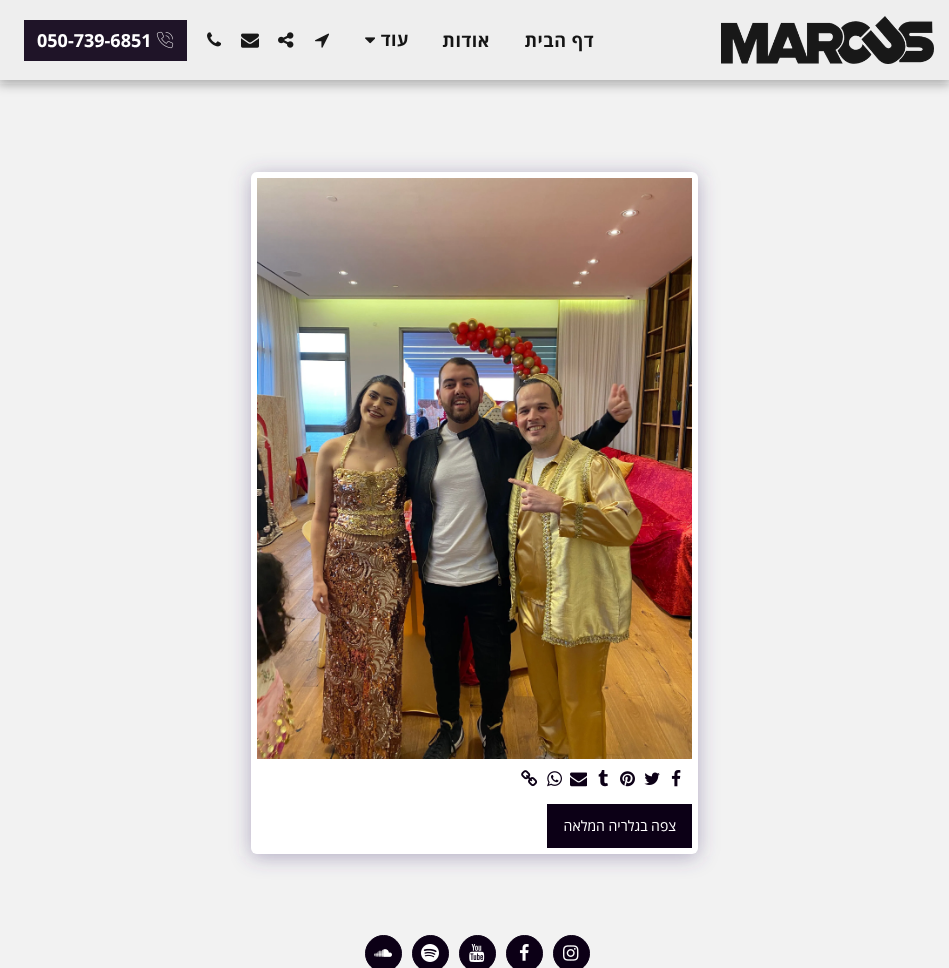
<svg xmlns="http://www.w3.org/2000/svg" width="949" height="968" viewBox="0 0 949 968">
  <defs>
    <filter id="blur1" x="-50%" y="-200%" width="200%" height="500%"><feGaussianBlur stdDeviation="6"/></filter>
    <filter id="blur2" x="-50%" y="-200%" width="200%" height="500%"><feGaussianBlur stdDeviation="10"/></filter>
  </defs>
  <rect width="100%" height="100%" fill="#f2f2f2"/>
  <rect x="-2" y="0" width="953" height="84" fill="#181818" fill-opacity="0.35" filter="url(#blur1)"/>
  <rect x="0" y="0" width="949" height="80" fill="#eeeeee"/>
  <image x="721" y="16" width="213" height="48" href="img1.png"/>
  <text x="594" y="47" font-family="Open Sans" font-size="18" font-weight="bold" letter-spacing="0.5" direction="rtl" fill="#141414">דף הבית</text>
  <text x="490" y="47" font-family="Open Sans" font-size="18" font-weight="bold" letter-spacing="0.5" direction="rtl" fill="#141414">אודות</text>
  <text x="409" y="46" font-family="Open Sans" font-size="18" font-weight="bold" letter-spacing="0.5" direction="rtl" fill="#141414">עוד</text>
  <image x="365" y="37" width="10" height="7" href="img2.png"/>
  <image x="315" y="33" width="14" height="15" href="img3.png"/>
  <image x="278" y="32" width="16" height="16" href="img4.png"/>
  <image x="241" y="33" width="18" height="15" href="img5.png"/>
  <image x="207" y="32" width="14" height="15" href="img6.png"/>
  <rect x="24" y="20" width="163" height="41" fill="#1f1428"/>
  <image x="156" y="31" width="18" height="18" href="img7.png"/>
  <text x="37" y="47" font-family="Open Sans" font-size="18" font-weight="bold" fill="#ffffff">050-739-6851</text>
  <rect x="251" y="175" width="447" height="682" rx="6" fill="#4d3f7a" fill-opacity="0.4" filter="url(#blur2)"/>
  <rect x="251" y="172" width="447" height="682" rx="6" fill="#ffffff"/>
  <image x="257" y="178" width="435" height="581" href="img8.png"/>
  <image x="671" y="770" width="10" height="17" href="img9.png"/>
  <image x="644" y="772" width="16" height="13" href="img10.png"/>
  <image x="620" y="771" width="15" height="16" href="img11.png"/>
  <image x="598" y="770" width="10" height="17" href="img12.png"/>
  <image x="570" y="772" width="17" height="15" href="img13.png"/>
  <image x="547" y="771" width="15" height="16" href="img14.png"/>
  <image x="521" y="770" width="17" height="17" href="img15.png"/>
  <rect x="547" y="804" width="145" height="44" fill="#0c0016"/>
  <text x="676" y="831" font-family="Open Sans" font-size="14" direction="rtl" fill="#ffffff">צפה בגלריה המלאה</text>
  <circle cx="571.5" cy="953.5" r="18" fill="#0c0016" stroke="#0c0016"/>
  <image x="563" y="945" width="16" height="16" href="img16.png"/>
  <circle cx="524.5" cy="953.5" r="18" fill="#0c0016" stroke="#0c0016"/>
  <image x="519" y="944" width="10" height="17" href="img17.png"/>
  <circle cx="477.5" cy="953.5" r="18" fill="#0c0016" stroke="#0c0016"/>
  <image x="469" y="944" width="16" height="18" href="img18.png"/>
  <circle cx="430.5" cy="953.5" r="18" fill="#0c0016" stroke="#0c0016"/>
  <image x="421" y="944" width="18" height="18" href="img19.png"/>
  <circle cx="383.5" cy="953.5" r="18" fill="#0c0016" stroke="#0c0016"/>
  <image x="374" y="949" width="18" height="8" href="img20.png"/>
</svg>
